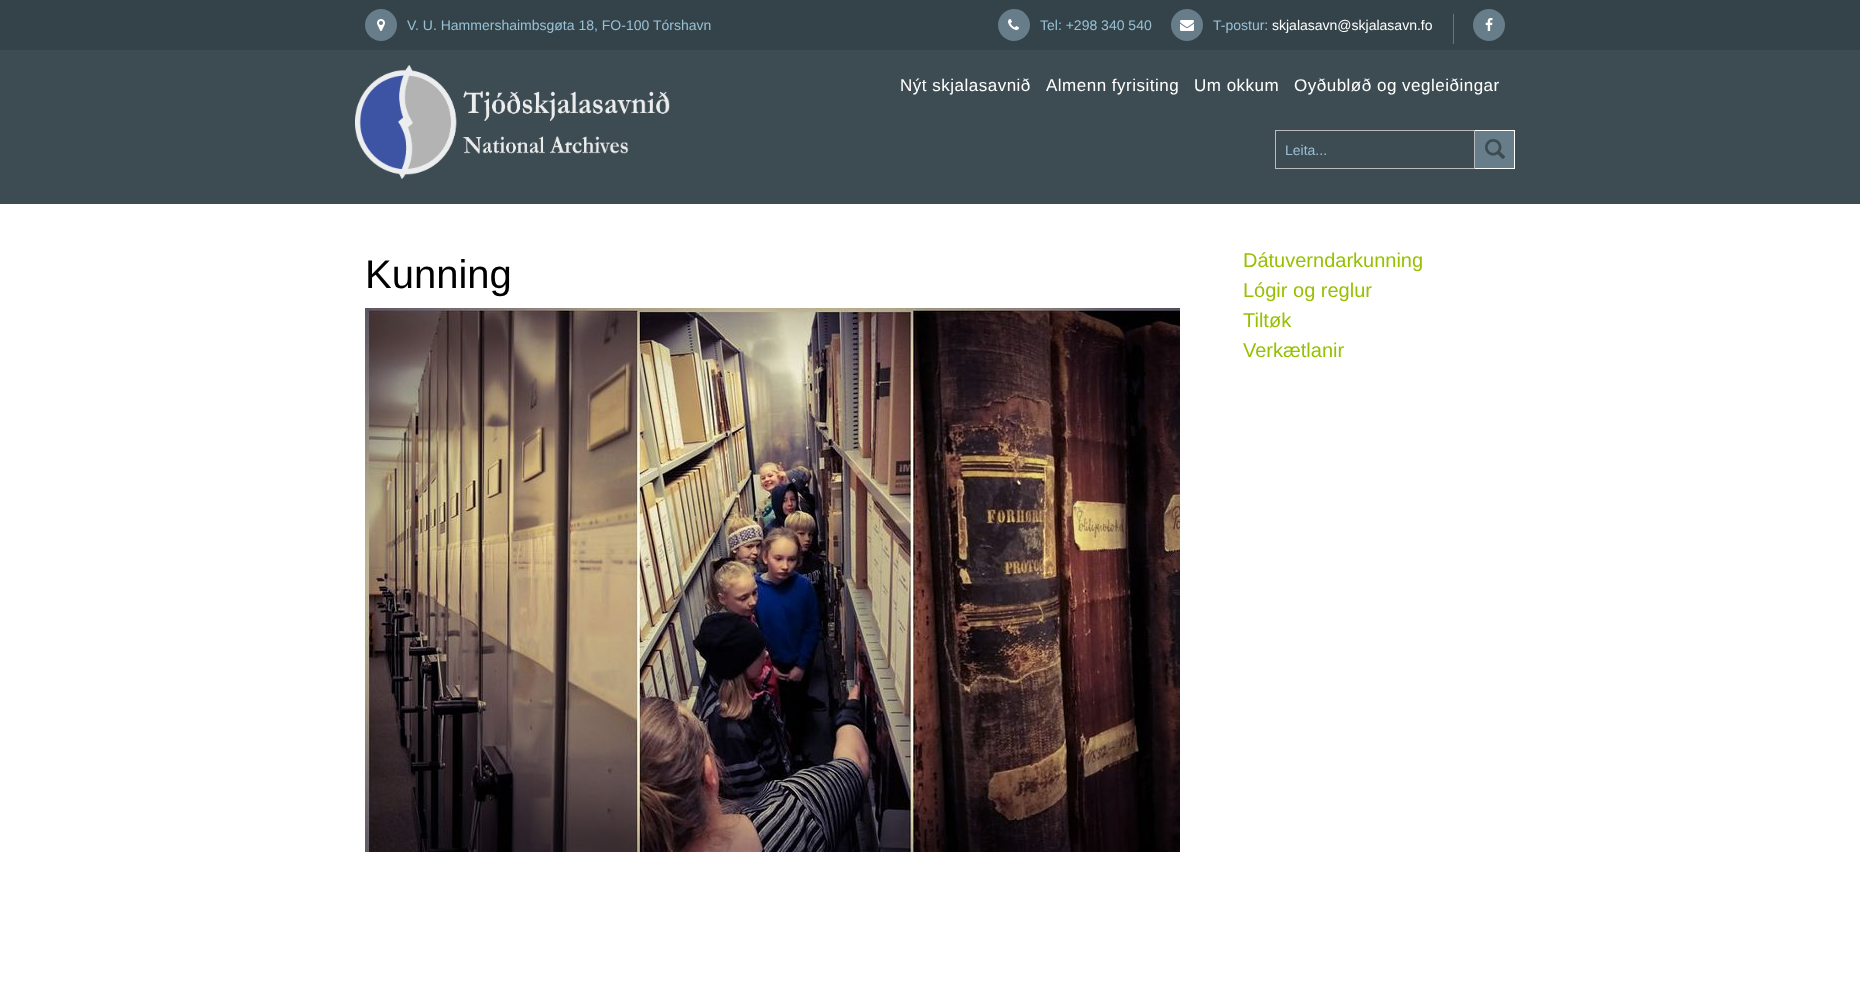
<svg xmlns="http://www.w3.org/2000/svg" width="1860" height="996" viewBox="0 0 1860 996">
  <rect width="100%" height="100%" fill="#ffffff"/>
  <rect x="0" y="0" width="1860" height="50" fill="#344249"/>
  <circle cx="381" cy="25" r="16" fill="#677e8a"/>
  <image x="377" y="19" width="8" height="12" href="img1.png"/>
  <text x="407" y="30" font-family="Liberation Sans" font-size="14" fill="#98c1d4">V. U. Hammershaimbsgøta 18, FO-100 Tórshavn</text>
  <circle cx="1014" cy="25" r="16" fill="#677e8a"/>
  <image x="1008" y="19" width="11" height="11" href="img2.png"/>
  <text x="1040" y="30" font-family="Liberation Sans" font-size="14" fill="#98c1d4">Tel: +298 340 540</text>
  <circle cx="1187" cy="25" r="16" fill="#677e8a"/>
  <image x="1180" y="20" width="14" height="11" href="img3.png"/>
  <text x="1213" y="30" font-family="Liberation Sans" font-size="14" fill="#98c1d4">T-postur:</text>
  <text x="1272" y="30" font-family="Liberation Sans" font-size="14" fill="#ffffff">skjalasavn@skjalasavn.fo</text>
  <rect x="1453" y="14" width="1" height="30" fill="#617782"/>
  <circle cx="1489" cy="25" r="16" fill="#677e8a"/>
  <image x="1485" y="18" width="8" height="13" href="img4.png"/>
  <rect x="0" y="50" width="1860" height="154" fill="#3d4c53"/>
  <image x="355" y="65" width="315" height="114" href="img5.png"/>
  <text x="900" y="91" font-family="Liberation Sans" font-size="17" letter-spacing="0.5" fill="#ffffff">Nýt skjalasavnið</text>
  <text x="1046" y="91" font-family="Liberation Sans" font-size="17" letter-spacing="0.5" fill="#ffffff">Almenn fyrisiting</text>
  <text x="1194" y="91" font-family="Liberation Sans" font-size="17" letter-spacing="0.5" fill="#ffffff">Um okkum</text>
  <text x="1294" y="91" font-family="Liberation Sans" font-size="17" letter-spacing="0.5" fill="#ffffff">Oyðubløð og vegleiðingar</text>
  <rect x="1275.5" y="130.5" width="199" height="38" fill="none" stroke="#bbbbbb"/>
  <text x="1285" y="155" font-family="Liberation Sans" font-size="14" fill="#98c1d4">Leita...</text>
  <rect x="1475" y="131" width="39" height="37" fill="#677e8a"/>
  <image x="1485" y="139" width="20" height="20" href="img6.png"/>
  <rect x="1475" y="130" width="40" height="1" fill="#ffffff"/>
  <rect x="1514" y="130" width="1" height="39" fill="#ffffff"/>
  <rect x="1475" y="168" width="40" height="1" fill="#ffffff"/>
  <text x="365" y="288" font-family="Liberation Sans" font-size="40" fill="#000000">Kunning</text>
  <image x="365" y="308" width="815" height="544" href="img7.png"/>
  <text x="1243" y="267" font-family="Liberation Sans" font-size="20" fill="#98c000">Dátuverndarkunning</text>
  <text x="1243" y="297" font-family="Liberation Sans" font-size="20" fill="#98c000">Lógir og reglur</text>
  <text x="1243" y="327" font-family="Liberation Sans" font-size="20" fill="#98c000">Tiltøk</text>
  <text x="1243" y="357" font-family="Liberation Sans" font-size="20" fill="#98c000">Verkætlanir</text>
</svg>
